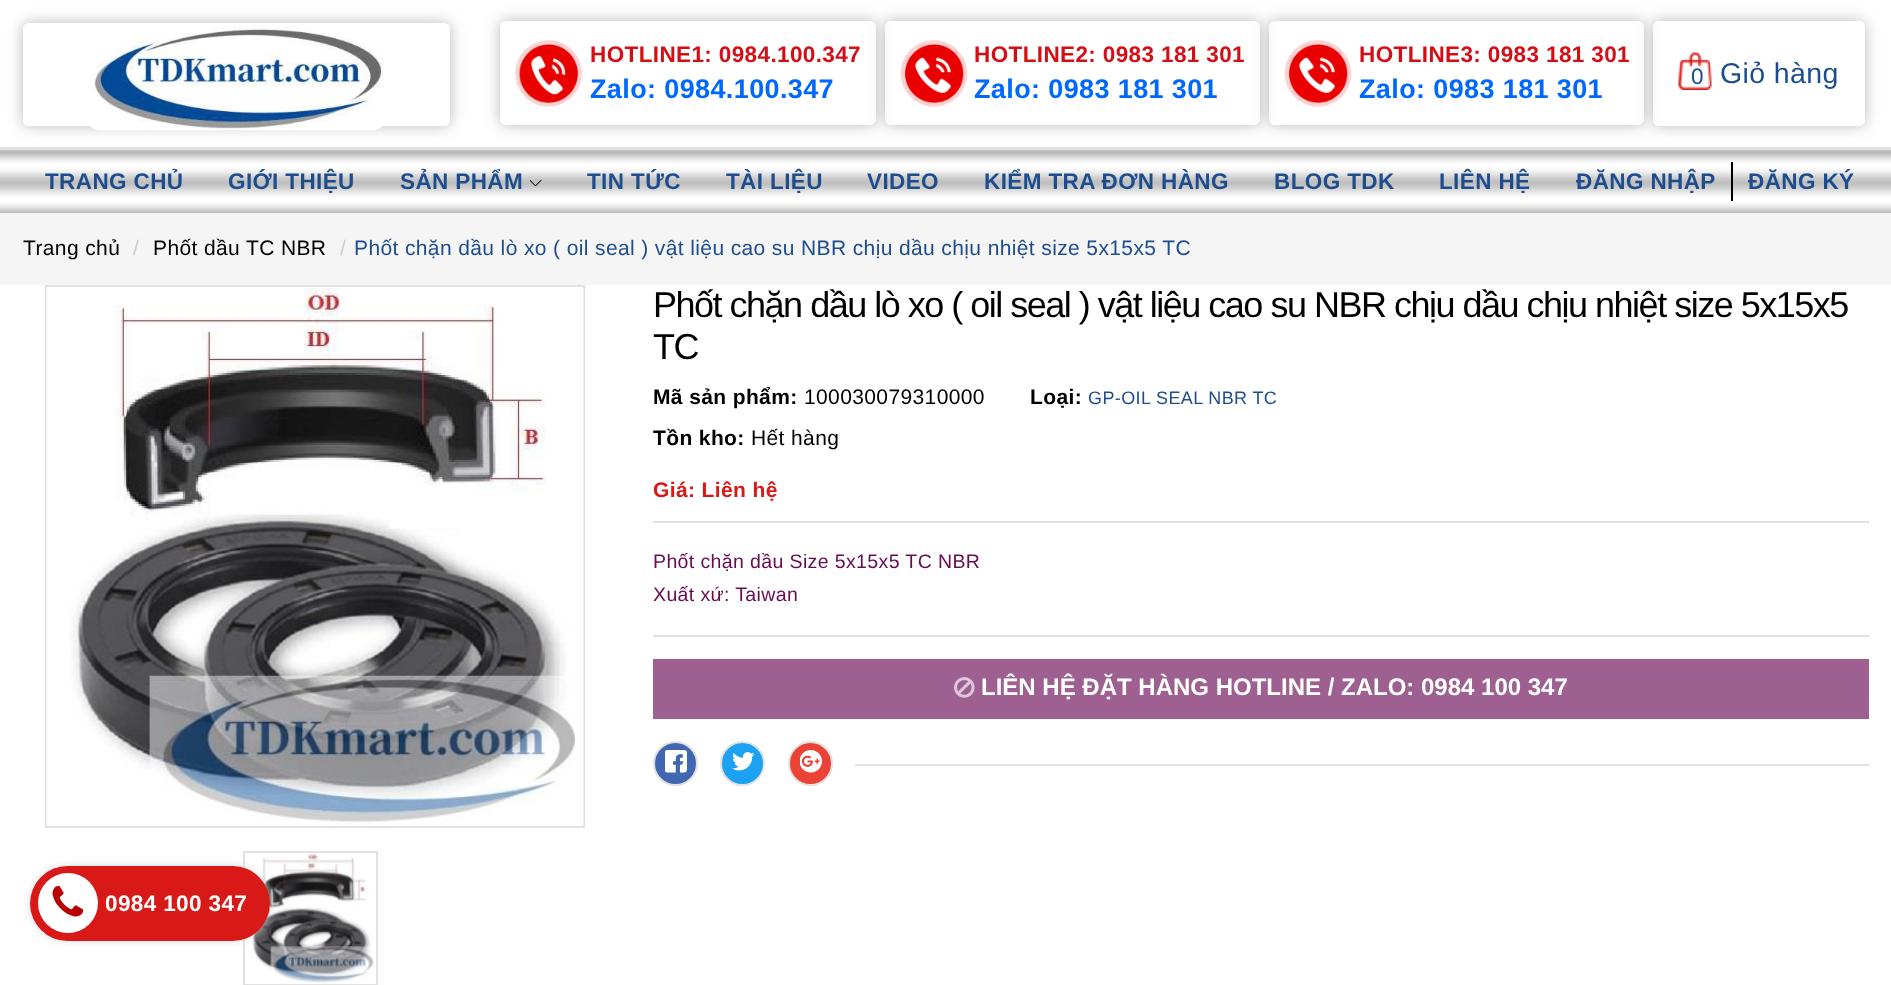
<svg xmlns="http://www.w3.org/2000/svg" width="1891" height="985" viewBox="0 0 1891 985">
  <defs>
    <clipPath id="clip1"><path d="M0 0H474V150H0ZM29 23H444C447.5 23 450 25.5 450 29V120C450 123.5 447.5 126 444 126H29C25.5 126 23 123.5 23 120V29C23 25.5 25.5 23 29 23Z" clip-rule="evenodd"/></clipPath>
    <filter id="blur1" x="-50%" y="-200%" width="200%" height="500%"><feGaussianBlur stdDeviation="7.5"/></filter>
    <clipPath id="clip2"><path d="M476 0H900V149H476ZM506 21H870C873.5 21 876 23.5 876 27V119C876 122.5 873.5 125 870 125H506C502.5 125 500 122.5 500 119V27C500 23.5 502.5 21 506 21Z" clip-rule="evenodd"/></clipPath>
    <clipPath id="clip3"><path d="M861 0H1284V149H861ZM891 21H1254C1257.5 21 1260 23.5 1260 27V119C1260 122.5 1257.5 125 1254 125H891C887.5 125 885 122.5 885 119V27C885 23.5 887.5 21 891 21Z" clip-rule="evenodd"/></clipPath>
    <clipPath id="clip4"><path d="M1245 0H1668V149H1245ZM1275 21H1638C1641.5 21 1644 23.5 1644 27V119C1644 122.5 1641.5 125 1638 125H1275C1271.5 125 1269 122.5 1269 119V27C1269 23.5 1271.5 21 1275 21Z" clip-rule="evenodd"/></clipPath>
    <clipPath id="clip5"><path d="M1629 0H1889V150H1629ZM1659 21H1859C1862.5 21 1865 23.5 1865 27V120C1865 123.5 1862.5 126 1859 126H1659C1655.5 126 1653 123.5 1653 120V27C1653 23.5 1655.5 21 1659 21Z" clip-rule="evenodd"/></clipPath>
    <filter id="blur2" x="-50%" y="-200%" width="200%" height="500%"><feGaussianBlur stdDeviation="4"/></filter>
  </defs>
  <rect width="100%" height="100%" fill="#ffffff"/>
  <rect x="0" y="147" width="1891" height="3" fill="#e1e1e1"/>
  <g clip-path="url(#clip1)">
    <rect x="23" y="23" width="427" height="103" rx="6" fill="#b9b9b9" filter="url(#blur1)"/>
  </g>
  <image x="90" y="27" width="294" height="104" href="img1.png"/>
  <g clip-path="url(#clip2)">
    <rect x="500" y="21" width="376" height="104" rx="6" fill="#b9b9b9" filter="url(#blur1)"/>
  </g>
  <image x="515" y="40" width="67" height="67" href="img2.png"/>
  <text x="590" y="62" font-family="Liberation Sans" font-size="22.5" font-weight="bold" letter-spacing="0.38" fill="#d50e15">HOTLINE1: 0984.100.347</text>
  <text x="590" y="98" font-family="Liberation Sans" font-size="27" font-weight="bold" letter-spacing="0.38" fill="#0068ff">Zalo: 0984.100.347</text>
  <g clip-path="url(#clip3)">
    <rect x="885" y="21" width="375" height="104" rx="6" fill="#b9b9b9" filter="url(#blur1)"/>
  </g>
  <image x="900" y="40" width="68" height="67" href="img3.png"/>
  <text x="974" y="62" font-family="Liberation Sans" font-size="22.5" font-weight="bold" letter-spacing="0.38" fill="#d50e15">HOTLINE2: 0983 181 301</text>
  <text x="974" y="98" font-family="Liberation Sans" font-size="27" font-weight="bold" letter-spacing="0.38" fill="#0068ff">Zalo: 0983 181 301</text>
  <g clip-path="url(#clip4)">
    <rect x="1269" y="21" width="375" height="104" rx="6" fill="#b9b9b9" filter="url(#blur1)"/>
  </g>
  <image x="1284" y="40" width="68" height="67" href="img4.png"/>
  <text x="1359" y="62" font-family="Liberation Sans" font-size="22.5" font-weight="bold" letter-spacing="0.38" fill="#d50e15">HOTLINE3: 0983 181 301</text>
  <text x="1359" y="98" font-family="Liberation Sans" font-size="27" font-weight="bold" letter-spacing="0.38" fill="#0068ff">Zalo: 0983 181 301</text>
  <g clip-path="url(#clip5)">
    <rect x="1653" y="21" width="212" height="105" rx="6" fill="#b9b9b9" filter="url(#blur1)"/>
  </g>
  <image x="1678" y="52" width="34" height="38" href="img5.png"/>
  <text x="1720" y="83" font-family="Liberation Sans" font-size="28.5" letter-spacing="0.38" fill="#1d4d8d">Giỏ hàng</text>
  <text x="1691" y="84" font-family="Liberation Sans" font-size="22.5" letter-spacing="0.38" fill="#1d4d8d">0</text>
  <image x="0" y="150" width="1891" height="63" href="img6.png"/>
  <text x="45" y="189" font-family="Liberation Sans" font-size="22.5" font-weight="bold" letter-spacing="0.38" fill="#1d4d8d">TRANG CHỦ</text>
  <text x="228" y="189" font-family="Liberation Sans" font-size="22.5" font-weight="bold" letter-spacing="0.38" fill="#1d4d8d">GIỚI THIỆU</text>
  <text x="400" y="189" font-family="Liberation Sans" font-size="22.5" font-weight="bold" letter-spacing="0.38" fill="#1d4d8d">SẢN PHẨM</text>
  <image x="530" y="179" width="12" height="8" href="img7.png"/>
  <text x="587" y="189" font-family="Liberation Sans" font-size="22.5" font-weight="bold" letter-spacing="0.38" fill="#1d4d8d">TIN TỨC</text>
  <text x="726" y="189" font-family="Liberation Sans" font-size="22.5" font-weight="bold" letter-spacing="0.38" fill="#1d4d8d">TÀI LIỆU</text>
  <text x="867" y="189" font-family="Liberation Sans" font-size="22.5" font-weight="bold" letter-spacing="0.38" fill="#1d4d8d">VIDEO</text>
  <text x="984" y="189" font-family="Liberation Sans" font-size="22.5" font-weight="bold" letter-spacing="0.38" fill="#1d4d8d">KIỂM TRA ĐƠN HÀNG</text>
  <text x="1274" y="189" font-family="Liberation Sans" font-size="22.5" font-weight="bold" letter-spacing="0.38" fill="#1d4d8d">BLOG TDK</text>
  <text x="1439" y="189" font-family="Liberation Sans" font-size="22.5" font-weight="bold" letter-spacing="0.38" fill="#1d4d8d">LIÊN HỆ</text>
  <text x="1576" y="189" font-family="Liberation Sans" font-size="22.5" font-weight="bold" letter-spacing="0.38" fill="#1d4d8d">ĐĂNG NHẬP</text>
  <rect x="1731" y="162" width="2" height="39" fill="#000000"/>
  <text x="1748" y="189" font-family="Liberation Sans" font-size="22.5" font-weight="bold" letter-spacing="0.38" fill="#1d4d8d">ĐĂNG KÝ</text>
  <rect x="0" y="213" width="1891" height="72" fill="#f5f5f5"/>
  <text x="23" y="255" font-family="Liberation Sans" font-size="21" letter-spacing="0.38" fill="#000000">Trang chủ</text>
  <text x="133" y="255" font-family="Liberation Sans" font-size="21" letter-spacing="0.38" fill="#cccccc">/</text>
  <text x="153" y="255" font-family="Liberation Sans" font-size="21" letter-spacing="0.38" fill="#000000">Phốt dầu TC NBR</text>
  <text x="340" y="255" font-family="Liberation Sans" font-size="21" letter-spacing="0.38" fill="#cccccc">/</text>
  <text x="354" y="255" font-family="Liberation Sans" font-size="21" letter-spacing="0.38" fill="#1d4d8d">Phốt chặn dầu lò xo ( oil seal ) vật liệu cao su NBR chịu dầu chịu nhiệt size 5x15x5 TC</text>
  <rect x="46" y="286" width="538" height="541" fill="none" stroke="#e1e1e1" stroke-width="2"/>
  <image x="46" y="288" width="538" height="537" href="img8.png"/>
  <rect x="244" y="852" width="133" height="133" fill="none" stroke="#e1e1e1" stroke-width="2"/>
  <image x="252" y="853" width="122" height="130" href="img9.png"/>
  <text x="653" y="317" font-family="Liberation Sans" font-size="36" letter-spacing="-1.5" fill="#000000">Phốt chặn dầu lò xo ( oil seal ) vật liệu cao su NBR chịu dầu chịu nhiệt size 5x15x5</text>
  <text x="653" y="359" font-family="Liberation Sans" font-size="36" letter-spacing="-1.5" fill="#000000">TC</text>
  <text x="653" y="404" font-family="Liberation Sans" font-size="21" font-weight="bold" letter-spacing="0.38" fill="#000000">Mã sản phẩm:</text>
  <text x="804" y="404" font-family="Liberation Sans" font-size="21" letter-spacing="0.38" fill="#000000">100030079310000</text>
  <text x="1030" y="404" font-family="Liberation Sans" font-size="21" font-weight="bold" letter-spacing="0.38" fill="#000000">Loại:</text>
  <text x="1088" y="404" font-family="Liberation Sans" font-size="18" letter-spacing="0.38" fill="#1d4d8d">GP-OIL SEAL NBR TC</text>
  <text x="653" y="445" font-family="Liberation Sans" font-size="21" font-weight="bold" letter-spacing="0.38" fill="#000000">Tồn kho:</text>
  <text x="751" y="445" font-family="Liberation Sans" font-size="21" letter-spacing="0.38" fill="#000000">Hết hàng</text>
  <rect x="653" y="521" width="1216" height="2" fill="#e1e1e1"/>
  <text x="653" y="497" font-family="Liberation Sans" font-size="21" font-weight="bold" letter-spacing="0.38" fill="#d91818">Giá: Liên hệ</text>
  <rect x="653" y="635" width="1216" height="2" fill="#e1e1e1"/>
  <text x="653" y="568" font-family="Liberation Sans" font-size="19.5" letter-spacing="0.38" fill="#680b54">Phốt chặn dầu Size 5x15x5 TC NBR</text>
  <text x="653" y="601" font-family="Liberation Sans" font-size="19.5" letter-spacing="0.38" fill="#680b54">Xuất xứ: Taiwan</text>
  <rect x="653" y="659" width="1216" height="60" fill="#9d6090"/>
  <image x="954" y="677" width="21" height="21" href="img10.png"/>
  <text x="981" y="695" font-family="Liberation Sans" font-size="24" font-weight="bold" fill="#ffffff">LIÊN HỆ ĐẶT HÀNG HOTLINE / ZALO: 0984 100 347</text>
  <circle cx="675.5" cy="763.5" r="21.5" fill="#4267b2" stroke="#e1e1e1" stroke-width="2"/>
  <image x="665" y="750" width="22" height="23" href="img11.png"/>
  <circle cx="742.5" cy="763.5" r="21.5" fill="#1da1f2" stroke="#e1e1e1" stroke-width="2"/>
  <image x="732" y="752" width="23" height="19" href="img12.png"/>
  <circle cx="810.5" cy="763.5" r="21.5" fill="#ea4335" stroke="#e1e1e1" stroke-width="2"/>
  <image x="800" y="750" width="22" height="23" href="img13.png"/>
  <rect x="855" y="764" width="1014" height="2" fill="#e1e1e1"/>
  <rect x="30" y="866" width="240" height="75" rx="37.5" fill="#dddddd" filter="url(#blur2)"/>
  <rect x="30" y="866" width="240" height="75" rx="37.5" fill="#d91818"/>
  <circle cx="68" cy="903" r="30" fill="#ffffff"/>
  <image x="52" y="885" width="32" height="32" href="img14.png"/>
  <text x="105" y="911" font-family="Liberation Sans" font-size="22.5" font-weight="bold" letter-spacing="0.38" fill="#ffffff">0984 100 347</text>
</svg>
